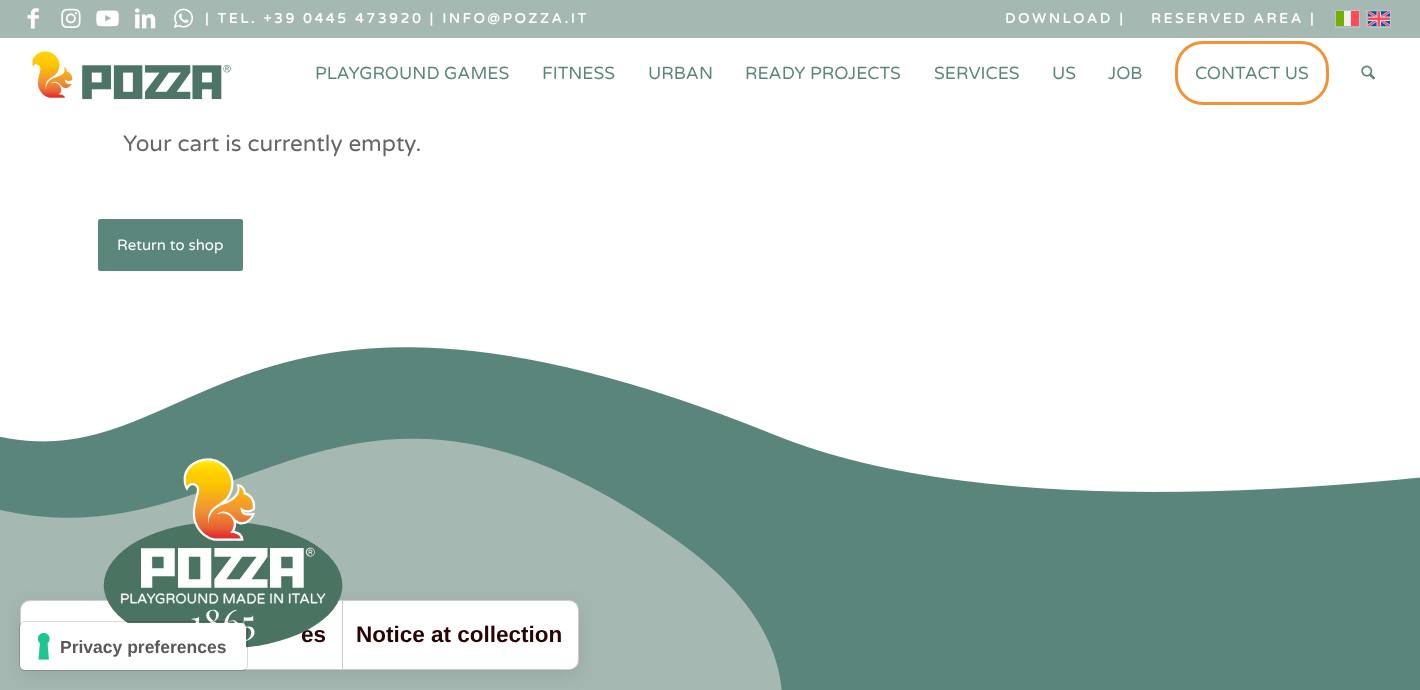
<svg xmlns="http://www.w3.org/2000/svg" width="1420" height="690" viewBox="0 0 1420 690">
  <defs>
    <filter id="blur1" x="-50%" y="-200%" width="200%" height="500%"><feGaussianBlur stdDeviation="10"/></filter>
  </defs>
  <rect width="100%" height="100%" fill="#ffffff"/>
  <rect x="0" y="0" width="1420" height="38" fill="#a6b8b2"/>
  <image x="27" y="8" width="12" height="21" href="img1.png"/>
  <image x="61" y="8" width="20" height="20" href="img2.png"/>
  <image x="96" y="10" width="23" height="17" href="img3.png"/>
  <image x="135" y="8" width="21" height="21" href="img4.png"/>
  <image x="173" y="8" width="20" height="20" href="img5.png"/>
  <text x="205" y="23" font-family="Varela Round" font-size="13.75" font-weight="bold" letter-spacing="2.75" fill="#ffffff">| TEL. +39 0445 473920 | INFO@POZZA.IT</text>
  <text x="1005" y="23" font-family="Varela Round" font-size="13.75" font-weight="bold" letter-spacing="2.75" fill="#ffffff">DOWNLOAD |</text>
  <text x="1151" y="23" font-family="Varela Round" font-size="13.75" font-weight="bold" letter-spacing="2.75" fill="#ffffff">RESERVED AREA |</text>
  <rect x="1335.5" y="10.5" width="24" height="17" fill="none" stroke="#b8c6c1"/>
  <rect x="1344" y="11" width="7" height="15" fill="#f0f0f0"/>
  <rect x="1351" y="11" width="8" height="15" fill="#ff4b55"/>
  <rect x="1336" y="11" width="8" height="15" fill="#73af00"/>
  <rect x="1366.5" y="10.5" width="24" height="17" fill="none" stroke="#b8c6c1"/>
  <image x="1368" y="11" width="22" height="15" href="img6.png"/>
  <image x="32" y="51" width="199" height="49" href="img7.png"/>
  <text x="315" y="79" font-family="'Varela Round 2'" font-size="17.5" fill="#5b867b">PLAYGROUND GAMES</text>
  <text x="542" y="79" font-family="'Varela Round 2'" font-size="17.5" fill="#5b867b">FITNESS</text>
  <text x="648" y="79" font-family="'Varela Round 2'" font-size="17.5" fill="#5b867b">URBAN</text>
  <text x="745" y="79" font-family="'Varela Round 2'" font-size="17.5" fill="#5b867b">READY PROJECTS</text>
  <text x="934" y="79" font-family="'Varela Round 2'" font-size="17.5" fill="#5b867b">SERVICES</text>
  <text x="1052" y="79" font-family="'Varela Round 2'" font-size="17.5" fill="#5b867b">US</text>
  <text x="1108" y="79" font-family="'Varela Round 2'" font-size="17.5" fill="#5b867b">JOB</text>
  <rect x="1176.5" y="42.5" width="151" height="61" rx="26.5" fill="none" stroke="#f09235" stroke-width="3"/>
  <text x="1195" y="79" font-family="'Varela Round 2'" font-size="17.5" fill="#5b867b">CONTACT US</text>
  <image x="1361" y="65" width="14" height="15" href="img8.png"/>
  <text x="123" y="151" font-family="Varela Round" font-size="22.5" fill="#666666">Your cart is currently empty.</text>
  <rect x="98" y="219" width="145" height="52" rx="2.5" fill="#5b867b"/>
  <text x="117" y="250" font-family="Varela Round" font-size="15" fill="#ffffff">Return to shop</text>
  <image x="0" y="347" width="1420" height="343" href="img9.png"/>
  <rect x="20" y="605" width="559" height="70" rx="10" fill="#000000" fill-opacity="0.1" filter="url(#blur1)"/>
  <rect x="20" y="600" width="559" height="70" rx="10" fill="#ffffff"/>
  <rect x="20.5" y="600.5" width="558" height="69" rx="9.5" fill="none" stroke="#000000" stroke-opacity="0.2"/>
  <rect x="342" y="601" width="1" height="68" fill="#cccccc"/>
  <text x="301" y="642" font-family="Liberation Sans" font-size="22.5" font-weight="bold" fill="#280404">es</text>
  <image x="103" y="458" width="240" height="190" href="img10.png"/>
  <text x="356" y="642" font-family="Liberation Sans" font-size="22.5" font-weight="bold" fill="#280404">Notice at collection</text>
  <rect x="19.5" y="621.5" width="228" height="49" rx="5.5" fill="none" stroke="#000000" stroke-opacity="0.15"/>
  <rect x="20" y="623" width="226" height="47" rx="5" fill="#ffffff"/>
  <image x="37" y="632" width="13" height="28" href="img11.png"/>
  <text x="60" y="653" font-family="Liberation Sans" font-size="17.5" font-weight="bold" fill="#595959">Privacy preferences</text>
</svg>
